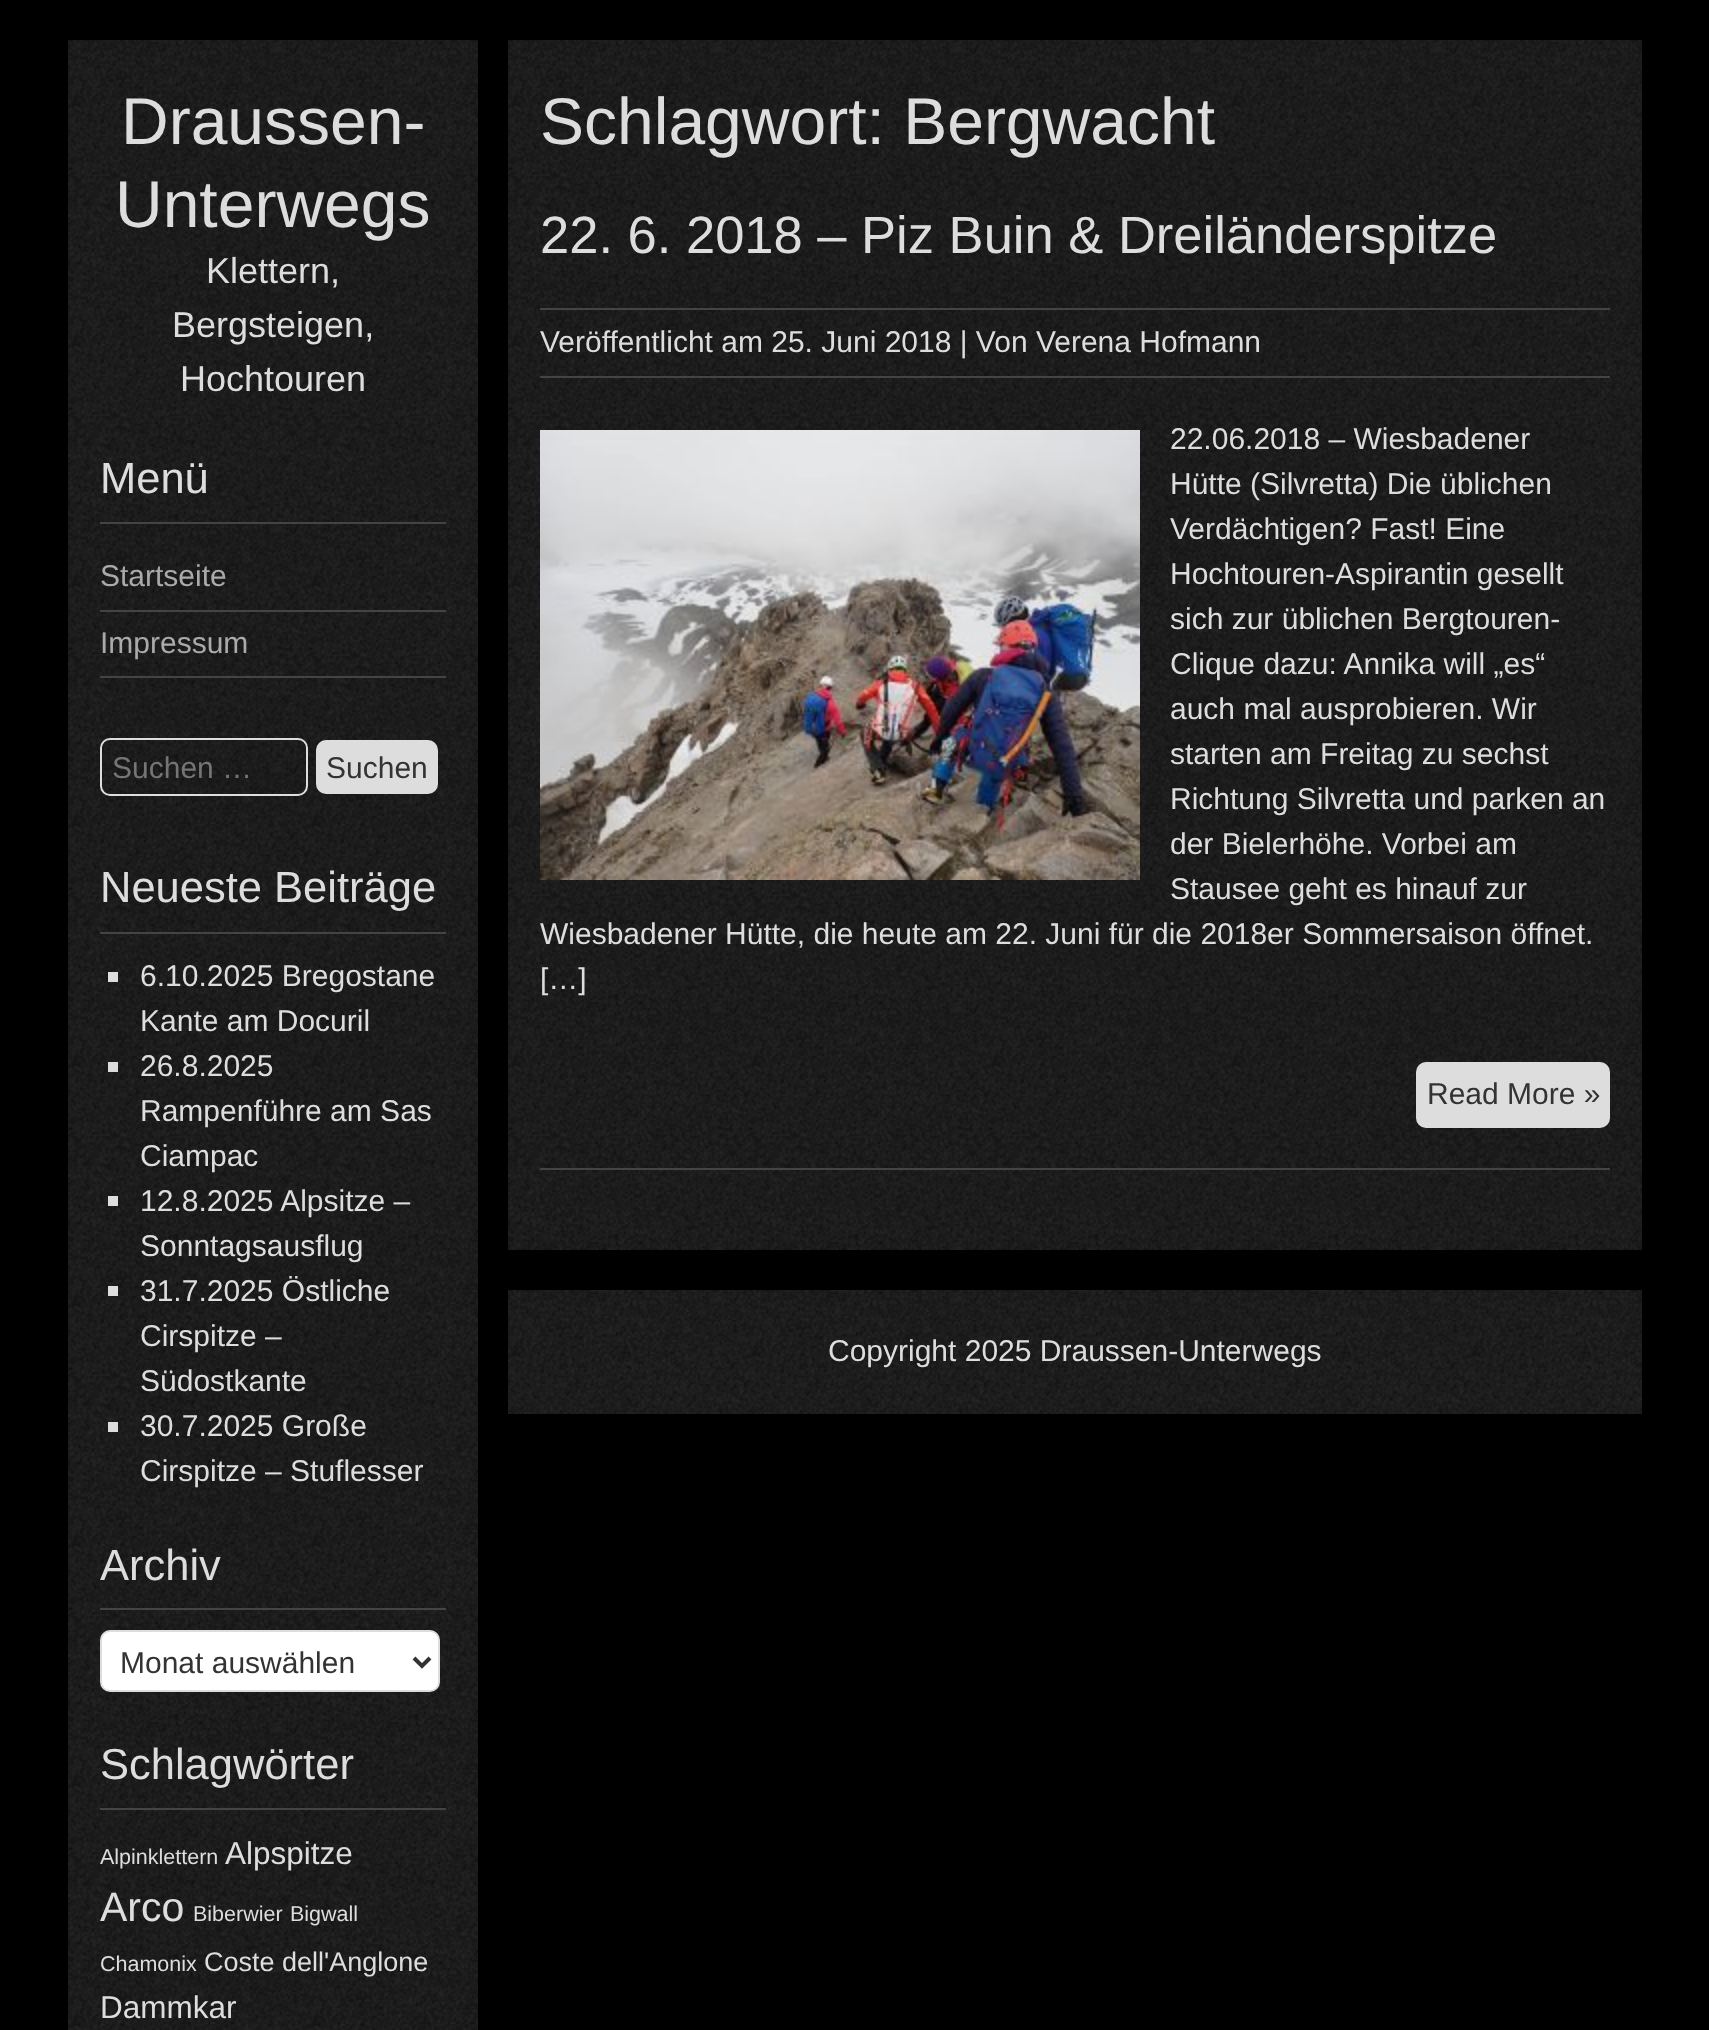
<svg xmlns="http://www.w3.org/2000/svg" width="1709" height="2030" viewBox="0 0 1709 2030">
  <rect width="100%" height="100%" fill="#000000"/>
  <image x="68" y="40" width="410" height="1990" href="img1.png"/>
  <text x="121" y="144" font-family="Liberation Sans" font-size="66" fill="#dddddd">Draussen-</text>
  <text x="115" y="227" font-family="Liberation Sans" font-size="66" fill="#dddddd">Unterwegs</text>
  <text x="206" y="283" font-family="Liberation Sans" font-size="36" fill="#dddddd">Klettern,</text>
  <text x="172" y="337" font-family="Liberation Sans" font-size="36" fill="#dddddd">Bergsteigen,</text>
  <text x="180" y="391" font-family="Liberation Sans" font-size="36" fill="#dddddd">Hochtouren</text>
  <rect x="100" y="522" width="346" height="2" fill="#444444"/>
  <text x="100" y="493" font-family="Liberation Sans" font-size="43.5" fill="#dddddd">Menü</text>
  <rect x="100" y="610" width="346" height="2" fill="#444444"/>
  <text x="100" y="586" font-family="Liberation Sans" font-size="30" fill="#aaaaaa">Startseite</text>
  <rect x="100" y="676" width="346" height="2" fill="#444444"/>
  <text x="100" y="653" font-family="Liberation Sans" font-size="30" fill="#aaaaaa">Impressum</text>
  <rect x="101" y="739" width="206" height="56" rx="9" fill="none" stroke="#dddddd" stroke-width="2"/>
  <text x="112" y="778" font-family="Liberation Sans" font-size="30" fill="#757575">Suchen …</text>
  <rect x="316" y="740" width="122" height="54" rx="10" fill="#dddddd"/>
  <text x="326" y="778" font-family="Liberation Sans" font-size="30" fill="#333333">Suchen</text>
  <rect x="100" y="932" width="346" height="2" fill="#444444"/>
  <text x="100" y="902" font-family="Liberation Sans" font-size="43.5" fill="#dddddd">Neueste Beiträge</text>
  <rect x="108" y="972" width="10" height="10" fill="#dddddd"/>
  <text x="140" y="986" font-family="Liberation Sans" font-size="30" fill="#dddddd">6.10.2025 Bregostane</text>
  <text x="140" y="1031" font-family="Liberation Sans" font-size="30" fill="#dddddd">Kante am Docuril</text>
  <rect x="108" y="1062" width="10" height="10" fill="#dddddd"/>
  <text x="140" y="1076" font-family="Liberation Sans" font-size="30" fill="#dddddd">26.8.2025</text>
  <text x="140" y="1121" font-family="Liberation Sans" font-size="30" fill="#dddddd">Rampenführe am Sas</text>
  <text x="140" y="1166" font-family="Liberation Sans" font-size="30" fill="#dddddd">Ciampac</text>
  <rect x="108" y="1196" width="10" height="10" fill="#dddddd"/>
  <text x="140" y="1211" font-family="Liberation Sans" font-size="30" fill="#dddddd">12.8.2025 Alpsitze –</text>
  <text x="140" y="1256" font-family="Liberation Sans" font-size="30" fill="#dddddd">Sonntagsausflug</text>
  <rect x="108" y="1286" width="10" height="10" fill="#dddddd"/>
  <text x="140" y="1301" font-family="Liberation Sans" font-size="30" fill="#dddddd">31.7.2025 Östliche</text>
  <text x="140" y="1346" font-family="Liberation Sans" font-size="30" fill="#dddddd">Cirspitze –</text>
  <text x="140" y="1391" font-family="Liberation Sans" font-size="30" fill="#dddddd">Südostkante</text>
  <rect x="108" y="1422" width="10" height="10" fill="#dddddd"/>
  <text x="140" y="1436" font-family="Liberation Sans" font-size="30" fill="#dddddd">30.7.2025 Große</text>
  <text x="140" y="1481" font-family="Liberation Sans" font-size="30" fill="#dddddd">Cirspitze – Stuflesser</text>
  <rect x="100" y="1608" width="346" height="2" fill="#444444"/>
  <text x="100" y="1580" font-family="Liberation Sans" font-size="43.5" fill="#dddddd">Archiv</text>
  <rect x="101" y="1631" width="338" height="60" rx="9" fill="#ffffff" stroke="#dddddd" stroke-width="2"/>
  <path d="M414 1658L422 1666L430 1658" fill="none" stroke="#333333" stroke-width="4"/>
  <text x="120" y="1673" font-family="Liberation Sans" font-size="30" fill="#333333">Monat auswählen</text>
  <rect x="100" y="1808" width="346" height="2" fill="#444444"/>
  <text x="100" y="1779" font-family="Liberation Sans" font-size="43.5" fill="#dddddd">Schlagwörter</text>
  <text x="100" y="1864" font-family="Liberation Sans" font-size="21.5" fill="#dddddd">Alpinklettern</text>
  <text x="225" y="1864" font-family="Liberation Sans" font-size="31.5" fill="#dddddd">Alpspitze</text>
  <text x="100" y="1921" font-family="Liberation Sans" font-size="41" fill="#dddddd">Arco</text>
  <text x="193" y="1921" font-family="Liberation Sans" font-size="21.5" fill="#dddddd">Biberwier</text>
  <text x="290" y="1921" font-family="Liberation Sans" font-size="21.5" fill="#dddddd">Bigwall</text>
  <text x="100" y="1971" font-family="Liberation Sans" font-size="21.5" fill="#dddddd">Chamonix</text>
  <text x="204" y="1971" font-family="Liberation Sans" font-size="27" fill="#dddddd">Coste dell'Anglone</text>
  <text x="100" y="2018" font-family="Liberation Sans" font-size="31.5" fill="#dddddd">Dammkar</text>
  <image x="508" y="40" width="1134" height="1210" href="img2.png"/>
  <text x="540" y="144" font-family="Liberation Sans" font-size="66" fill="#dddddd">Schlagwort: Bergwacht</text>
  <rect x="540" y="1168" width="1070" height="2" fill="#444444"/>
  <text x="540" y="253" font-family="Liberation Sans" font-size="52.5" fill="#dddddd">22. 6. 2018 – Piz Buin &amp; Dreiländerspitze</text>
  <rect x="540" y="308" width="1070" height="2" fill="#444444"/>
  <rect x="540" y="376" width="1070" height="2" fill="#444444"/>
  <text x="540" y="352" font-family="Liberation Sans" font-size="30" fill="#dddddd">Veröffentlicht am 25. Juni 2018 | Von Verena Hofmann</text>
  <text x="1170" y="449" font-family="Liberation Sans" font-size="30" fill="#dddddd">22.06.2018 – Wiesbadener</text>
  <text x="1170" y="494" font-family="Liberation Sans" font-size="30" fill="#dddddd">Hütte (Silvretta) Die üblichen</text>
  <text x="1170" y="539" font-family="Liberation Sans" font-size="30" fill="#dddddd">Verdächtigen? Fast! Eine</text>
  <text x="1170" y="584" font-family="Liberation Sans" font-size="30" fill="#dddddd">Hochtouren-Aspirantin gesellt</text>
  <text x="1170" y="629" font-family="Liberation Sans" font-size="30" fill="#dddddd">sich zur üblichen Bergtouren-</text>
  <text x="1170" y="674" font-family="Liberation Sans" font-size="30" fill="#dddddd">Clique dazu: Annika will „es“</text>
  <text x="1170" y="719" font-family="Liberation Sans" font-size="30" fill="#dddddd">auch mal ausprobieren. Wir</text>
  <text x="1170" y="764" font-family="Liberation Sans" font-size="30" fill="#dddddd">starten am Freitag zu sechst</text>
  <text x="1170" y="809" font-family="Liberation Sans" font-size="30" fill="#dddddd">Richtung Silvretta und parken an</text>
  <text x="1170" y="854" font-family="Liberation Sans" font-size="30" fill="#dddddd">der Bielerhöhe. Vorbei am</text>
  <text x="1170" y="899" font-family="Liberation Sans" font-size="30" fill="#dddddd">Stausee geht es hinauf zur</text>
  <text x="540" y="944" font-family="Liberation Sans" font-size="30" fill="#dddddd">Wiesbadener Hütte, die heute am 22. Juni für die 2018er Sommersaison öffnet.</text>
  <text x="540" y="989" font-family="Liberation Sans" font-size="30" fill="#dddddd">[…]</text>
  <image x="540" y="430" width="600" height="450" href="img3.png"/>
  <rect x="1416" y="1062" width="194" height="66" rx="10" fill="#dddddd"/>
  <text x="1427" y="1104" font-family="Liberation Sans" font-size="30" fill="#333333">Read More »</text>
  <image x="508" y="1290" width="1134" height="124" href="img4.png"/>
  <text x="828" y="1361" font-family="Liberation Sans" font-size="30" fill="#dddddd">Copyright 2025 Draussen-Unterwegs</text>
</svg>
